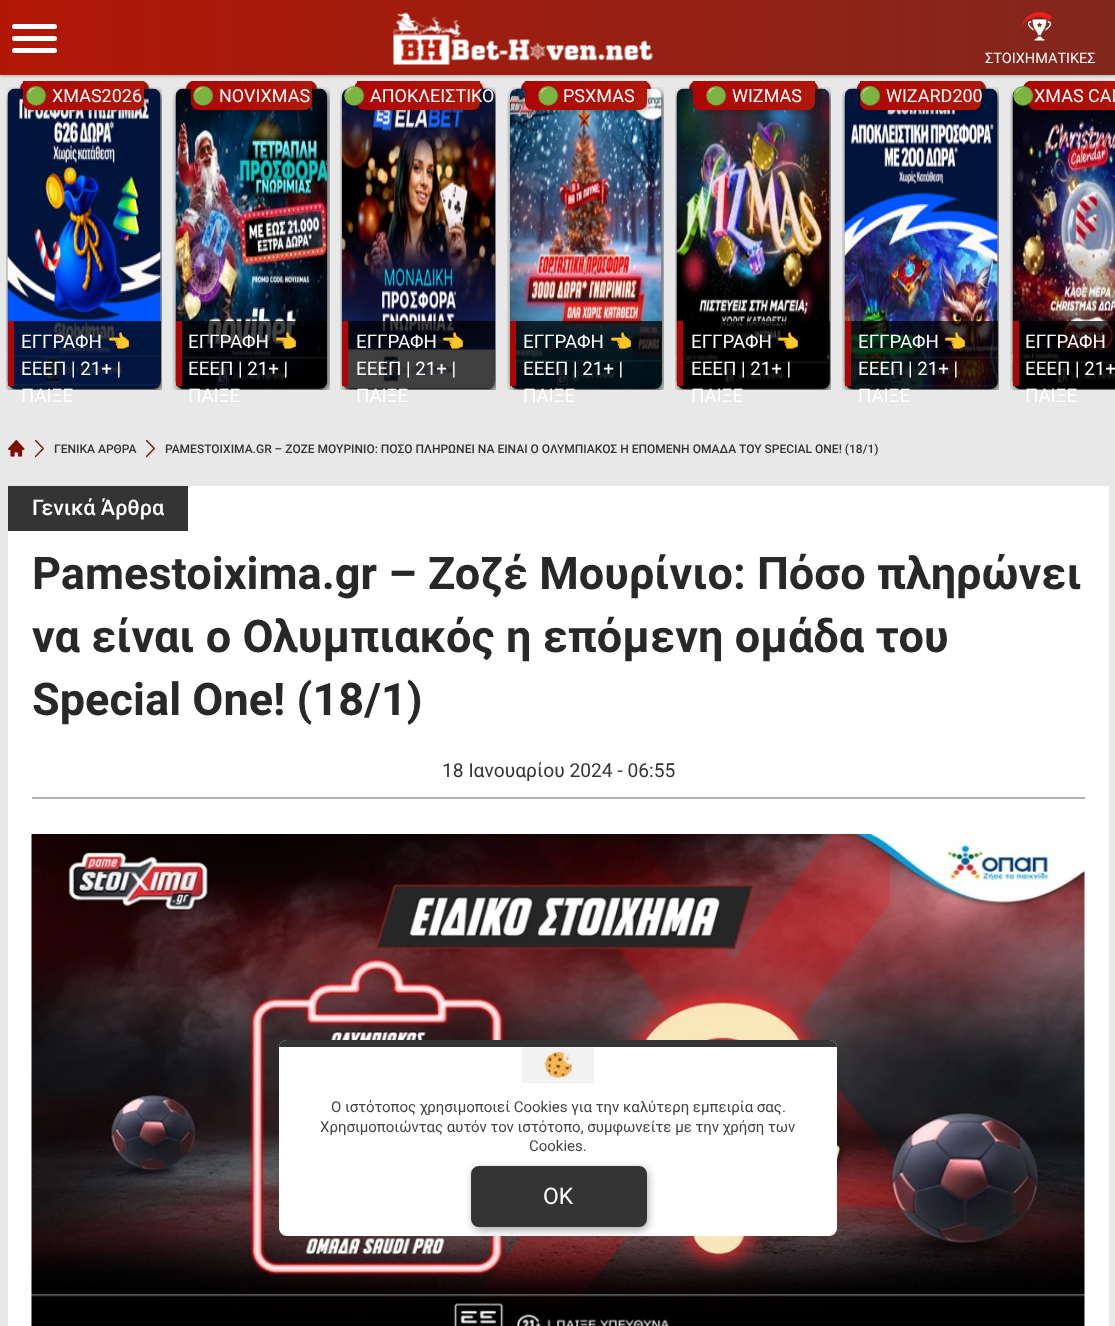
<svg xmlns="http://www.w3.org/2000/svg" width="1115" height="1326" viewBox="0 0 1115 1326">
  <defs>
    <linearGradient id="g1" gradientUnits="userSpaceOnUse" x1="20" y1="85" x2="149" y2="85"><stop offset="0" stop-color="#ad0505"/><stop offset="1" stop-color="#b0190b"/></linearGradient>
    <clipPath id="clip1"><rect x="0" y="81" width="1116" height="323"/></clipPath>
    <filter id="blur1" x="-50%" y="-200%" width="200%" height="500%"><feGaussianBlur stdDeviation="3"/></filter>
    <linearGradient id="g2" gradientUnits="userSpaceOnUse" x1="186" y1="85" x2="317" y2="85"><stop offset="0" stop-color="#ad0505"/><stop offset="1" stop-color="#b0190b"/></linearGradient>
    <linearGradient id="g3" gradientUnits="userSpaceOnUse" x1="354" y1="85" x2="483" y2="85"><stop offset="0" stop-color="#ad0505"/><stop offset="1" stop-color="#b0190b"/></linearGradient>
    <linearGradient id="g4" gradientUnits="userSpaceOnUse" x1="521" y1="85" x2="651" y2="85"><stop offset="0" stop-color="#ad0505"/><stop offset="1" stop-color="#b0190b"/></linearGradient>
    <linearGradient id="g5" gradientUnits="userSpaceOnUse" x1="689" y1="85" x2="818" y2="85"><stop offset="0" stop-color="#ad0505"/><stop offset="1" stop-color="#b0190b"/></linearGradient>
    <linearGradient id="g6" gradientUnits="userSpaceOnUse" x1="857" y1="85" x2="986" y2="85"><stop offset="0" stop-color="#ad0505"/><stop offset="1" stop-color="#b0190b"/></linearGradient>
    <linearGradient id="g7" gradientUnits="userSpaceOnUse" x1="1023" y1="85" x2="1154" y2="85"><stop offset="0" stop-color="#ad0505"/><stop offset="1" stop-color="#b0190b"/></linearGradient>
    <linearGradient id="g8" gradientUnits="userSpaceOnUse" x1="0" y1="38" x2="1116" y2="37"><stop offset="0" stop-color="#b21705"/><stop offset="1" stop-color="#82271d"/></linearGradient>
    <linearGradient id="g9" gradientUnits="userSpaceOnUse" x1="23" y1="95" x2="144" y2="95"><stop offset="0" stop-color="#ad0505"/><stop offset="1" stop-color="#b0190b"/></linearGradient>
    <linearGradient id="g10" gradientUnits="userSpaceOnUse" x1="191" y1="95" x2="312" y2="95"><stop offset="0" stop-color="#ad0505"/><stop offset="1" stop-color="#b0190b"/></linearGradient>
    <linearGradient id="g11" gradientUnits="userSpaceOnUse" x1="357" y1="95" x2="480" y2="95"><stop offset="0" stop-color="#ad0505"/><stop offset="1" stop-color="#b0190b"/></linearGradient>
    <linearGradient id="g12" gradientUnits="userSpaceOnUse" x1="525" y1="95" x2="647" y2="95"><stop offset="0" stop-color="#ad0505"/><stop offset="1" stop-color="#b0190b"/></linearGradient>
    <linearGradient id="g13" gradientUnits="userSpaceOnUse" x1="693" y1="95" x2="815" y2="95"><stop offset="0" stop-color="#ad0505"/><stop offset="1" stop-color="#b0190b"/></linearGradient>
    <linearGradient id="g14" gradientUnits="userSpaceOnUse" x1="860" y1="95" x2="981" y2="95"><stop offset="0" stop-color="#ad0505"/><stop offset="1" stop-color="#b0190b"/></linearGradient>
    <linearGradient id="g15" gradientUnits="userSpaceOnUse" x1="1028" y1="95" x2="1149" y2="95"><stop offset="0" stop-color="#ad0505"/><stop offset="1" stop-color="#b0190b"/></linearGradient>
    <clipPath id="clip2"><rect x="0" y="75" width="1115" height="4"/></clipPath>
    <filter id="blur2" x="-50%" y="-200%" width="200%" height="500%"><feGaussianBlur stdDeviation="2"/></filter>
    <clipPath id="clip3"><rect x="279" y="1040" width="558" height="196" rx="8"/></clipPath>
    <filter id="blur3" x="-50%" y="-200%" width="200%" height="500%"><feGaussianBlur stdDeviation="4.5"/></filter>
  </defs>
  <rect width="100%" height="100%" fill="#e8e8e8"/>
  <image x="6" y="87" width="156" height="303" href="img3.png"/>
  <path d="M28 81H141C145.5 81 149 84.5 149 89H20C20 84.5 23.5 81 28 81Z" fill="url(#g1)"/>
  <g clip-path="url(#clip1)">
    <rect x="24" y="81" width="122" height="30" rx="8" fill="#000000" fill-opacity="0.35" filter="url(#blur1)"/>
  </g>
  <image x="172" y="87" width="158" height="303" href="img4.png"/>
  <path d="M194 81H309C313.5 81 317 84.5 317 89H186C186 84.5 189.5 81 194 81Z" fill="url(#g2)"/>
  <g clip-path="url(#clip1)">
    <rect x="192" y="81" width="122" height="30" rx="8" fill="#000000" fill-opacity="0.35" filter="url(#blur1)"/>
  </g>
  <image x="340" y="87" width="156" height="303" href="img5.png"/>
  <path d="M362 81H475C479.5 81 483 84.5 483 89H354C354 84.5 357.5 81 362 81Z" fill="url(#g3)"/>
  <g clip-path="url(#clip1)">
    <rect x="359" y="81" width="123" height="30" rx="8" fill="#000000" fill-opacity="0.35" filter="url(#blur1)"/>
  </g>
  <image x="507" y="87" width="157" height="303" href="img6.png"/>
  <path d="M529 81H643C647.5 81 651 84.5 651 89H521C521 84.5 524.5 81 529 81Z" fill="url(#g4)"/>
  <g clip-path="url(#clip1)">
    <rect x="527" y="81" width="121" height="30" rx="8" fill="#000000" fill-opacity="0.35" filter="url(#blur1)"/>
  </g>
  <image x="675" y="87" width="156" height="303" href="img7.png"/>
  <path d="M697 81H810C814.5 81 818 84.5 818 89H689C689 84.5 692.5 81 697 81Z" fill="url(#g5)"/>
  <g clip-path="url(#clip1)">
    <rect x="695" y="81" width="121" height="30" rx="8" fill="#000000" fill-opacity="0.35" filter="url(#blur1)"/>
  </g>
  <image x="842" y="87" width="157" height="303" href="img8.png"/>
  <path d="M865 81H978C982.5 81 986 84.5 986 89H857C857 84.5 860.5 81 865 81Z" fill="url(#g6)"/>
  <g clip-path="url(#clip1)">
    <rect x="861" y="81" width="122" height="30" rx="8" fill="#000000" fill-opacity="0.35" filter="url(#blur1)"/>
  </g>
  <image x="1010" y="87" width="105" height="303" href="img9.png"/>
  <path d="M1031 81H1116V89H1023C1023 84.5 1026.5 81 1031 81Z" fill="url(#g7)"/>
  <g clip-path="url(#clip1)">
    <rect x="1029" y="81" width="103" height="30" rx="8" fill="#000000" fill-opacity="0.35" filter="url(#blur1)"/>
  </g>
  <rect x="0" y="0" width="1115" height="75" fill="url(#g8)"/>
  <path d="M23 81H144V102C144 106.5 140.5 110 136 110H31C26.5 110 23 106.5 23 102Z" fill="url(#g9)"/>
  <path d="M191 81H312V102C312 106.5 308.5 110 304 110H199C194.5 110 191 106.5 191 102Z" fill="url(#g10)"/>
  <path d="M357 81H480V102C480 106.5 476.5 110 472 110H365C360.5 110 357 106.5 357 102Z" fill="url(#g11)"/>
  <path d="M525 81H647V102C647 106.5 643.5 110 639 110H533C528.5 110 525 106.5 525 102Z" fill="url(#g12)"/>
  <path d="M693 81H815V102C815 106.5 811.5 110 807 110H701C696.5 110 693 106.5 693 102Z" fill="url(#g13)"/>
  <path d="M860 81H981V102C981 106.5 977.5 110 973 110H868C863.5 110 860 106.5 860 102Z" fill="url(#g14)"/>
  <path d="M1028 81H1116V110H1036C1031.5 110 1028 106.5 1028 102Z" fill="url(#g15)"/>
  <g clip-path="url(#clip2)">
    <rect x="0" y="0" width="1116" height="75" fill="#514e4f" fill-opacity="0.6" filter="url(#blur2)"/>
  </g>
  <rect x="12" y="36" width="45" height="5" rx="2.5" fill="#ffffff"/>
  <rect x="12" y="24" width="45" height="5" rx="2.5" fill="#ffffff"/>
  <rect x="12" y="48" width="45" height="5" rx="2.5" fill="#ffffff"/>
  <image x="393" y="12" width="260" height="53" href="img1.png"/>
  <path d="M1039.5 12C1029.5 12 1021.5 20 1021.5 30C1021.5 17.5 1041 12.5 1049 20.5L1052 17C1049 14 1044.5 12 1039.5 12Z" fill="#ec1c22"/>
  <image x="1027" y="19" width="25" height="22" href="img2.png"/>
  <text x="985" y="63" font-family="Roboto" font-size="14.5" fill="#ffffff">ΣΤΟΙΧΗΜΑΤΙΚΕΣ</text>
  <text x="25" y="102" font-family="Noto Color Emoji" font-size="18" fill="#ffffff">🟢</text>
  <text x="52" y="102" font-family="Roboto" font-size="18" fill="#ffffff">XMAS2026</text>
  <path d="M8 321H161V381C161 385.5 157.5 389 153 389H16C11.5 389 8 385.5 8 381Z" fill="#000000" fill-opacity="0.75"/>
  <rect x="8" y="321" width="6" height="65" fill="#ad0505"/>
  <text x="21" y="348" font-family="Roboto" font-size="18.75" fill="#ffffff">ΕΓΓΡΑΦΗ</text>
  <text x="107" y="348" font-family="Noto Color Emoji" font-size="18.75" fill="#ffffff">👈</text>
  <text x="21" y="375" font-family="Roboto" font-size="18.75" fill="#ffffff">ΕΕΕΠ | 21+ |</text>
  <text x="21" y="402" font-family="Roboto" font-size="18.75" fill="#ffffff">ΠΑΙΞΕ</text>
  <text x="192" y="102" font-family="Noto Color Emoji" font-size="18" fill="#ffffff">🟢</text>
  <text x="219" y="102" font-family="Roboto" font-size="18" fill="#ffffff">NOVIXMAS</text>
  <path d="M176 321H327V381C327 385.5 323.5 389 319 389H184C179.5 389 176 385.5 176 381Z" fill="#000000" fill-opacity="0.75"/>
  <rect x="176" y="321" width="6" height="65" fill="#ad0505"/>
  <text x="188" y="348" font-family="Roboto" font-size="18.75" fill="#ffffff">ΕΓΓΡΑΦΗ</text>
  <text x="274" y="348" font-family="Noto Color Emoji" font-size="18.75" fill="#ffffff">👈</text>
  <text x="188" y="375" font-family="Roboto" font-size="18.75" fill="#ffffff">ΕΕΕΠ | 21+ |</text>
  <text x="188" y="402" font-family="Roboto" font-size="18.75" fill="#ffffff">ΠΑΙΞΕ</text>
  <text x="343" y="102" font-family="Noto Color Emoji" font-size="18" fill="#ffffff">🟢</text>
  <text x="370" y="102" font-family="Roboto" font-size="18" fill="#ffffff">ΑΠΟΚΛΕΙΣΤΙΚΟ</text>
  <path d="M342 321H495V381C495 385.5 491.5 389 487 389H350C345.5 389 342 385.5 342 381Z" fill="#000000" fill-opacity="0.75"/>
  <rect x="342" y="321" width="6" height="65" fill="#ad0505"/>
  <text x="356" y="348" font-family="Roboto" font-size="18.75" fill="#ffffff">ΕΓΓΡΑΦΗ</text>
  <text x="441" y="348" font-family="Noto Color Emoji" font-size="18.75" fill="#ffffff">👈</text>
  <text x="356" y="375" font-family="Roboto" font-size="18.75" fill="#ffffff">ΕΕΕΠ | 21+ |</text>
  <text x="356" y="402" font-family="Roboto" font-size="18.75" fill="#ffffff">ΠΑΙΞΕ</text>
  <text x="537" y="102" font-family="Noto Color Emoji" font-size="18" fill="#ffffff">🟢</text>
  <text x="563" y="102" font-family="Roboto" font-size="18" fill="#ffffff">PSXMAS</text>
  <path d="M510 321H662V381C662 385.5 658.5 389 654 389H518C513.5 389 510 385.5 510 381Z" fill="#000000" fill-opacity="0.75"/>
  <rect x="510" y="321" width="6" height="65" fill="#ad0505"/>
  <text x="523" y="348" font-family="Roboto" font-size="18.75" fill="#ffffff">ΕΓΓΡΑΦΗ</text>
  <text x="609" y="348" font-family="Noto Color Emoji" font-size="18.75" fill="#ffffff">👈</text>
  <text x="523" y="375" font-family="Roboto" font-size="18.75" fill="#ffffff">ΕΕΕΠ | 21+ |</text>
  <text x="523" y="402" font-family="Roboto" font-size="18.75" fill="#ffffff">ΠΑΙΞΕ</text>
  <text x="705" y="102" font-family="Noto Color Emoji" font-size="18" fill="#ffffff">🟢</text>
  <text x="732" y="102" font-family="Roboto" font-size="18" fill="#ffffff">WIZMAS</text>
  <path d="M677 321H830V381C830 385.5 826.5 389 822 389H685C680.5 389 677 385.5 677 381Z" fill="#000000" fill-opacity="0.75"/>
  <rect x="677" y="321" width="6" height="65" fill="#ad0505"/>
  <text x="691" y="348" font-family="Roboto" font-size="18.75" fill="#ffffff">ΕΓΓΡΑΦΗ</text>
  <text x="776" y="348" font-family="Noto Color Emoji" font-size="18.75" fill="#ffffff">👈</text>
  <text x="691" y="375" font-family="Roboto" font-size="18.75" fill="#ffffff">ΕΕΕΠ | 21+ |</text>
  <text x="691" y="402" font-family="Roboto" font-size="18.75" fill="#ffffff">ΠΑΙΞΕ</text>
  <text x="859" y="102" font-family="Noto Color Emoji" font-size="18" fill="#ffffff">🟢</text>
  <text x="886" y="102" font-family="Roboto" font-size="18" fill="#ffffff">WIZARD200</text>
  <path d="M845 321H998V381C998 385.5 994.5 389 990 389H853C848.5 389 845 385.5 845 381Z" fill="#000000" fill-opacity="0.75"/>
  <rect x="845" y="321" width="6" height="65" fill="#ad0505"/>
  <text x="858" y="348" font-family="Roboto" font-size="18.75" fill="#ffffff">ΕΓΓΡΑΦΗ</text>
  <text x="943" y="348" font-family="Noto Color Emoji" font-size="18.75" fill="#ffffff">👈</text>
  <text x="858" y="375" font-family="Roboto" font-size="18.75" fill="#ffffff">ΕΕΕΠ | 21+ |</text>
  <text x="858" y="402" font-family="Roboto" font-size="18.75" fill="#ffffff">ΠΑΙΞΕ</text>
  <text x="1012" y="102" font-family="Noto Color Emoji" font-size="18" fill="#ffffff">🟢</text>
  <text x="1034" y="102" font-family="Roboto" font-size="18" fill="#ffffff">XMAS CAL</text>
  <path d="M1013 321H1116V389H1021C1016.5 389 1013 385.5 1013 381Z" fill="#000000" fill-opacity="0.75"/>
  <rect x="1013" y="321" width="6" height="65" fill="#ad0505"/>
  <text x="1025" y="348" font-family="Roboto" font-size="18.75" fill="#ffffff">ΕΓΓΡΑΦΗ</text>
  <text x="1025" y="375" font-family="Roboto" font-size="18.75" fill="#ffffff">ΕΕΕΠ | 21+</text>
  <text x="1025" y="402" font-family="Roboto" font-size="18.75" fill="#ffffff">ΠΑΙΞΕ</text>
  <image x="8" y="440" width="17" height="17" href="img10.png"/>
  <image x="35" y="440" width="9" height="18" href="img11.png"/>
  <text x="54" y="453" font-family="Roboto" font-size="12" font-weight="500" fill="#343434">ΓΕΝΙΚΑ ΑΡΘΡΑ</text>
  <image x="146" y="440" width="9" height="18" href="img11.png"/>
  <text x="165" y="453" font-family="Roboto" font-size="12" font-weight="500" fill="#343434">PAMESTOIXIMA.GR – ΖΟΖΕ ΜΟΥΡΙΝΙΟ: ΠΟΣΟ ΠΛΗΡΩΝΕΙ ΝΑ ΕΙΝΑΙ Ο ΟΛΥΜΠΙΑΚΟΣ Η ΕΠΟΜΕΝΗ ΟΜΑΔΑ ΤΟΥ SPECIAL ONE! (18/1)</text>
  <rect x="8" y="486" width="1101" height="840" fill="#ffffff"/>
  <rect x="8" y="486" width="180" height="45" fill="#343434"/>
  <text x="32" y="515" font-family="Roboto" font-size="21.5" font-weight="500" fill="#ffffff">Γενικά Άρθρα</text>
  <text x="32" y="589" font-family="Roboto" font-size="45.1" font-weight="bold" fill="#292828">Pamestoixima.gr – Ζοζέ Μουρίνιο: Πόσο πληρώνει</text>
  <text x="32" y="652" font-family="Roboto" font-size="45.1" font-weight="bold" fill="#292828">να είναι ο Ολυμπιακός η επόμενη ομάδα του</text>
  <text x="32" y="715" font-family="Roboto" font-size="45.1" font-weight="bold" fill="#292828">Special One! (18/1)</text>
  <text x="442" y="777" font-family="Roboto" font-size="19.25" fill="#343434">18 Ιανουαρίου 2024 - 06:55</text>
  <rect x="32" y="797" width="1053" height="2" fill="#b1b1b1"/>
  <image x="31" y="834" width="1054" height="492" href="img12.png"/>
  <rect x="279" y="1040" width="558" height="196" rx="8" fill="#ffffff"/>
  <g clip-path="url(#clip3)">
    <rect x="279" y="1040" width="558" height="7" fill="#343434"/>
  </g>
  <rect x="522" y="1047" width="72" height="36" fill="#000000" fill-opacity="0.05"/>
  <image x="544" y="1051" width="29" height="28" href="img13.png"/>
  <text x="331" y="1112" font-family="Roboto" font-size="15" fill="#444444">Ο ιστότοπος χρησιμοποιεί Cookies για την καλύτερη εμπειρία σας.</text>
  <text x="320" y="1132" font-family="Roboto" font-size="15" fill="#444444">Χρησιμοποιώντας αυτόν τον ιστότοπο, συμφωνείτε με την χρήση των</text>
  <text x="529" y="1151" font-family="Roboto" font-size="15" fill="#444444">Cookies.</text>
  <rect x="473" y="1169" width="175" height="61" rx="8" fill="#000000" fill-opacity="0.35" filter="url(#blur3)"/>
  <rect x="472" y="1167" width="174" height="59" rx="7" fill="#343434" stroke="#343434" stroke-width="2"/>
  <text x="543" y="1204" font-family="Roboto" font-size="23" fill="#ffffff">OK</text>
</svg>
